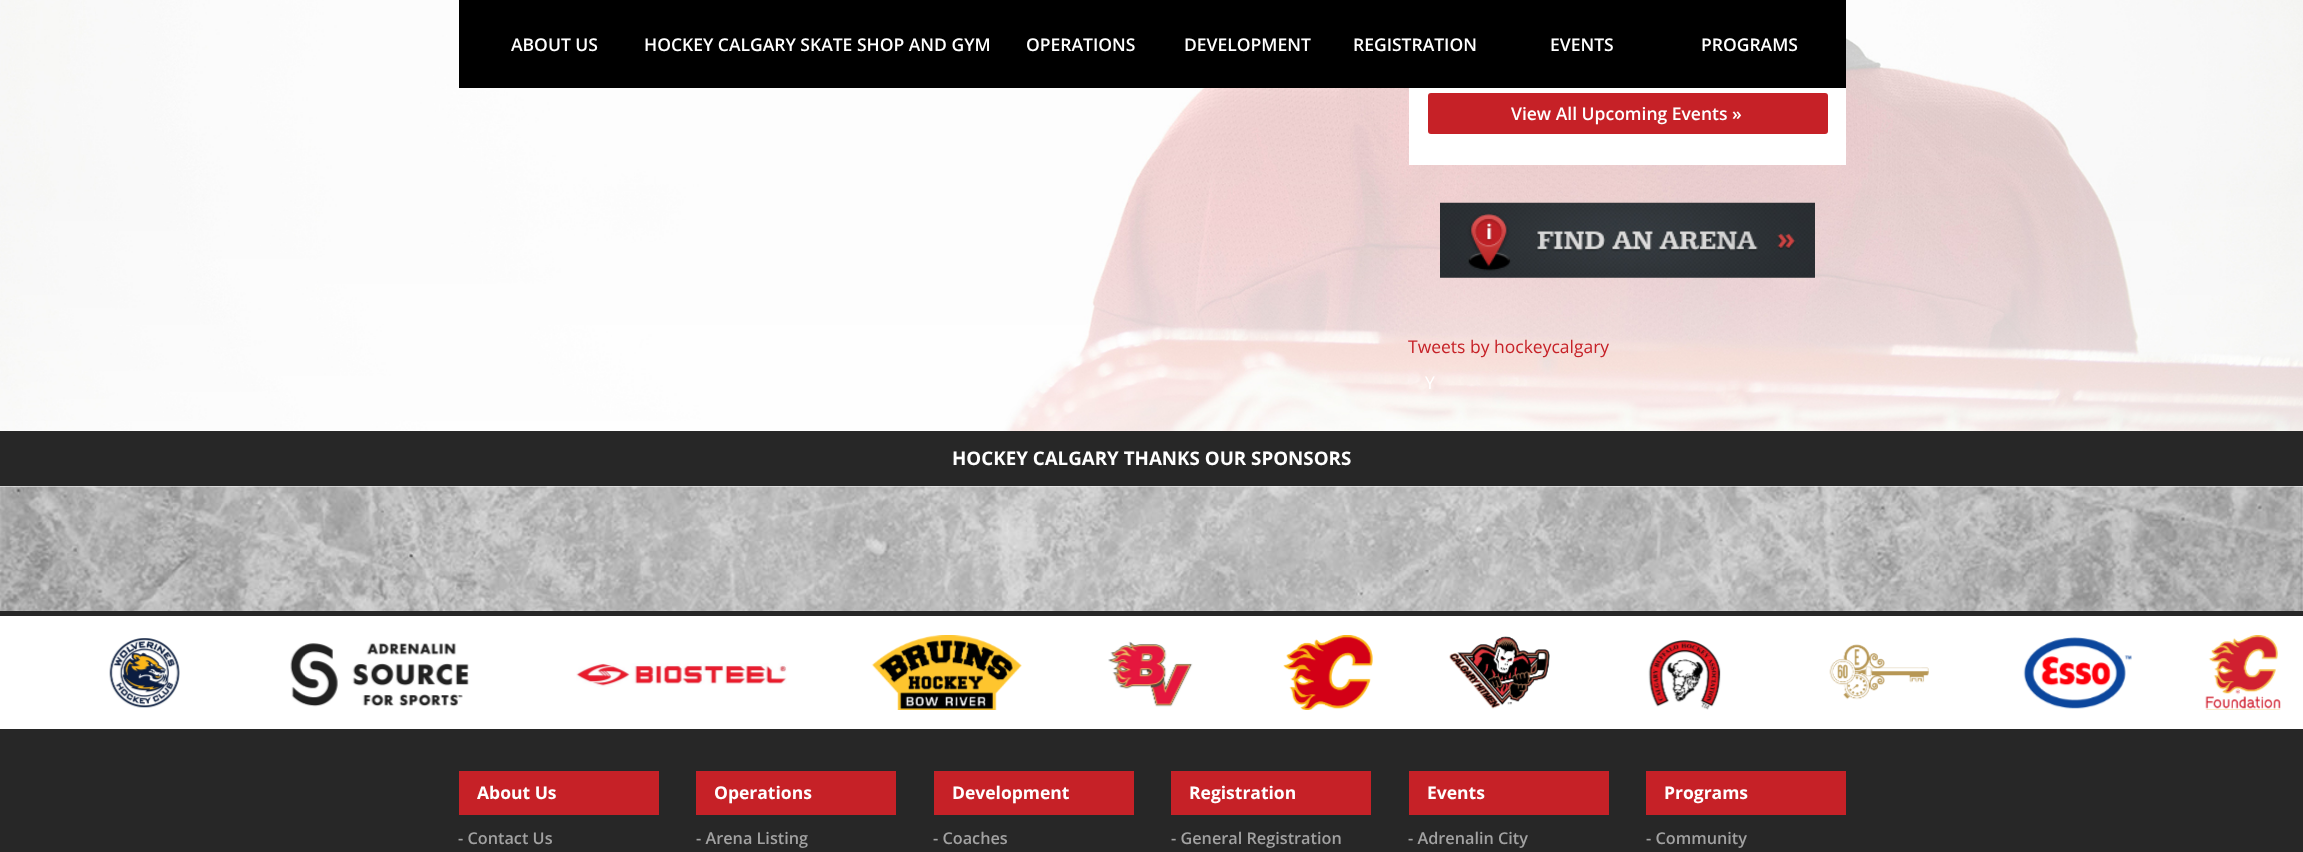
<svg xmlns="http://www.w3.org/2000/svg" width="2303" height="852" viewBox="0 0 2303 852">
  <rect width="100%" height="100%" fill="#ffffff"/>
  <image x="0" y="0" width="2303" height="431" href="img1.png"/>
  <rect x="459" y="0" width="1387" height="88" fill="#000000"/>
  <text x="511" y="51" font-family="Open Sans" font-size="17.5" font-weight="600" fill="#ffffff">ABOUT US</text>
  <text x="644" y="51" font-family="Open Sans" font-size="17.5" font-weight="600" fill="#ffffff">HOCKEY CALGARY SKATE SHOP AND GYM</text>
  <text x="1026" y="51" font-family="Open Sans" font-size="17.5" font-weight="600" fill="#ffffff">OPERATIONS</text>
  <text x="1184" y="51" font-family="Open Sans" font-size="17.5" font-weight="600" fill="#ffffff">DEVELOPMENT</text>
  <text x="1353" y="51" font-family="Open Sans" font-size="17.5" font-weight="600" fill="#ffffff">REGISTRATION</text>
  <text x="1550" y="51" font-family="Open Sans" font-size="17.5" font-weight="600" fill="#ffffff">EVENTS</text>
  <text x="1701" y="51" font-family="Open Sans" font-size="17.5" font-weight="600" fill="#ffffff">PROGRAMS</text>
  <rect x="1409" y="88" width="437" height="77" fill="#ffffff"/>
  <rect x="1428" y="93" width="400" height="41" rx="3" fill="#c62127"/>
  <text x="1511" y="120" font-family="Open Sans" font-size="17.5" font-weight="600" fill="#ffffff">View All Upcoming Events »</text>
  <image x="1440" y="202" width="375" height="76" href="img2.png"/>
  <text x="1408" y="353" font-family="Open Sans" font-size="17.5" fill="#c62127">Tweets by hockeycalgary</text>
  <text x="1425" y="389" font-family="Open Sans" font-size="17.5" fill="#ffffff">Y</text>
  <rect x="0" y="431" width="2303" height="55" fill="#272727"/>
  <text x="952" y="465" font-family="Open Sans" font-size="18.75" font-weight="bold" fill="#ffffff">HOCKEY CALGARY THANKS OUR SPONSORS</text>
  <image x="0" y="486" width="2303" height="125" href="img3.png"/>
  <rect x="0" y="611" width="2303" height="5" fill="#272727"/>
  <image x="109" y="638" width="71" height="70" href="img4.png"/>
  <image x="290" y="643" width="179" height="64" href="img5.png"/>
  <image x="576" y="663" width="211" height="24" href="img6.png"/>
  <image x="871" y="635" width="151" height="75" href="img7.png"/>
  <image x="1108" y="641" width="85" height="66" href="img8.png"/>
  <image x="1283" y="635" width="90" height="75" href="img9.png"/>
  <image x="1449" y="636" width="101" height="73" href="img10.png"/>
  <image x="1648" y="640" width="73" height="70" href="img11.png"/>
  <image x="1829" y="644" width="100" height="56" href="img12.png"/>
  <image x="2023" y="637" width="109" height="72" href="img13.png"/>
  <image x="2205" y="635" width="76" height="75" href="img14.png"/>
  <rect x="0" y="729" width="2303" height="123" fill="#272727"/>
  <rect x="459" y="771" width="200" height="44" fill="#c62127"/>
  <text x="477" y="799" font-family="Open Sans" font-size="17.5" font-weight="bold" fill="#ffffff">About Us</text>
  <text x="458" y="844" font-family="Open Sans" font-size="16.25" font-weight="600" fill="#a2a2a2">- Contact Us</text>
  <rect x="696" y="771" width="200" height="44" fill="#c62127"/>
  <text x="714" y="799" font-family="Open Sans" font-size="17.5" font-weight="bold" fill="#ffffff">Operations</text>
  <text x="696" y="844" font-family="Open Sans" font-size="16.25" font-weight="600" fill="#a2a2a2">- Arena Listing</text>
  <rect x="934" y="771" width="200" height="44" fill="#c62127"/>
  <text x="952" y="799" font-family="Open Sans" font-size="17.5" font-weight="bold" fill="#ffffff">Development</text>
  <text x="933" y="844" font-family="Open Sans" font-size="16.25" font-weight="600" fill="#a2a2a2">- Coaches</text>
  <rect x="1171" y="771" width="200" height="44" fill="#c62127"/>
  <text x="1189" y="799" font-family="Open Sans" font-size="17.5" font-weight="bold" fill="#ffffff">Registration</text>
  <text x="1171" y="844" font-family="Open Sans" font-size="16.25" font-weight="600" fill="#a2a2a2">- General Registration</text>
  <rect x="1409" y="771" width="200" height="44" fill="#c62127"/>
  <text x="1427" y="799" font-family="Open Sans" font-size="17.5" font-weight="bold" fill="#ffffff">Events</text>
  <text x="1408" y="844" font-family="Open Sans" font-size="16.25" font-weight="600" fill="#a2a2a2">- Adrenalin City</text>
  <rect x="1646" y="771" width="200" height="44" fill="#c62127"/>
  <text x="1664" y="799" font-family="Open Sans" font-size="17.5" font-weight="bold" fill="#ffffff">Programs</text>
  <text x="1646" y="844" font-family="Open Sans" font-size="16.25" font-weight="600" fill="#a2a2a2">- Community</text>
</svg>
